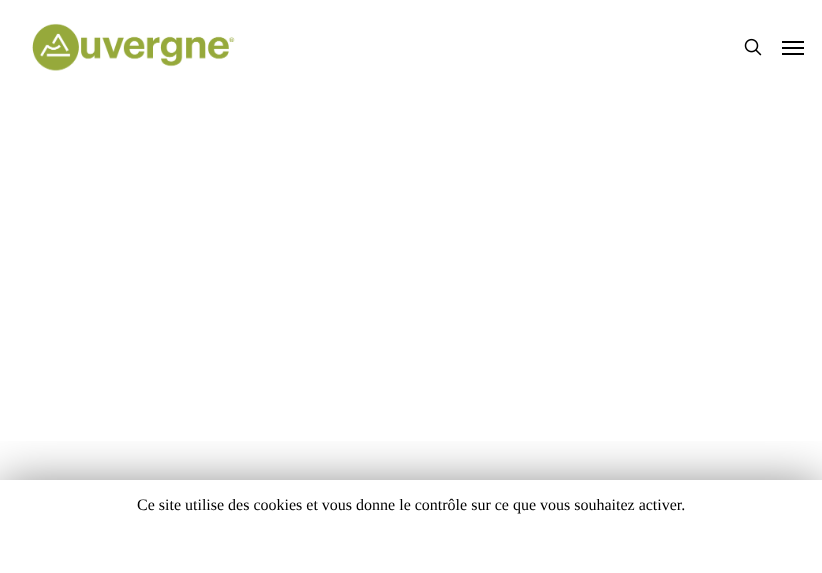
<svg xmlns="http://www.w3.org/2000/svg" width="822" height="573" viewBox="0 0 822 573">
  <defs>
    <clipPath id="clip1"><rect x="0" y="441" width="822" height="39"/></clipPath>
    <filter id="blur1" x="-50%" y="-200%" width="200%" height="500%"><feGaussianBlur stdDeviation="25"/></filter>
  </defs>
  <rect width="100%" height="100%" fill="#ffffff"/>
  <image x="32" y="23" width="203" height="48" href="img1.png"/>
  <image x="744" y="38" width="18" height="18" href="img2.png"/>
  <rect x="782" y="41" width="22" height="2" fill="#000000"/>
  <rect x="782" y="53" width="22" height="2" fill="#000000"/>
  <rect x="782" y="47" width="22" height="2" fill="#000000"/>
  <g clip-path="url(#clip1)">
    <rect x="0" y="485" width="822" height="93" fill="#000000" fill-opacity="0.5" filter="url(#blur1)"/>
  </g>
  <text x="137" y="510" font-family="Liberation Serif" font-size="16" fill="#000000">Ce site utilise des cookies et vous donne le contrôle sur ce que vous souhaitez activer.</text>
</svg>
